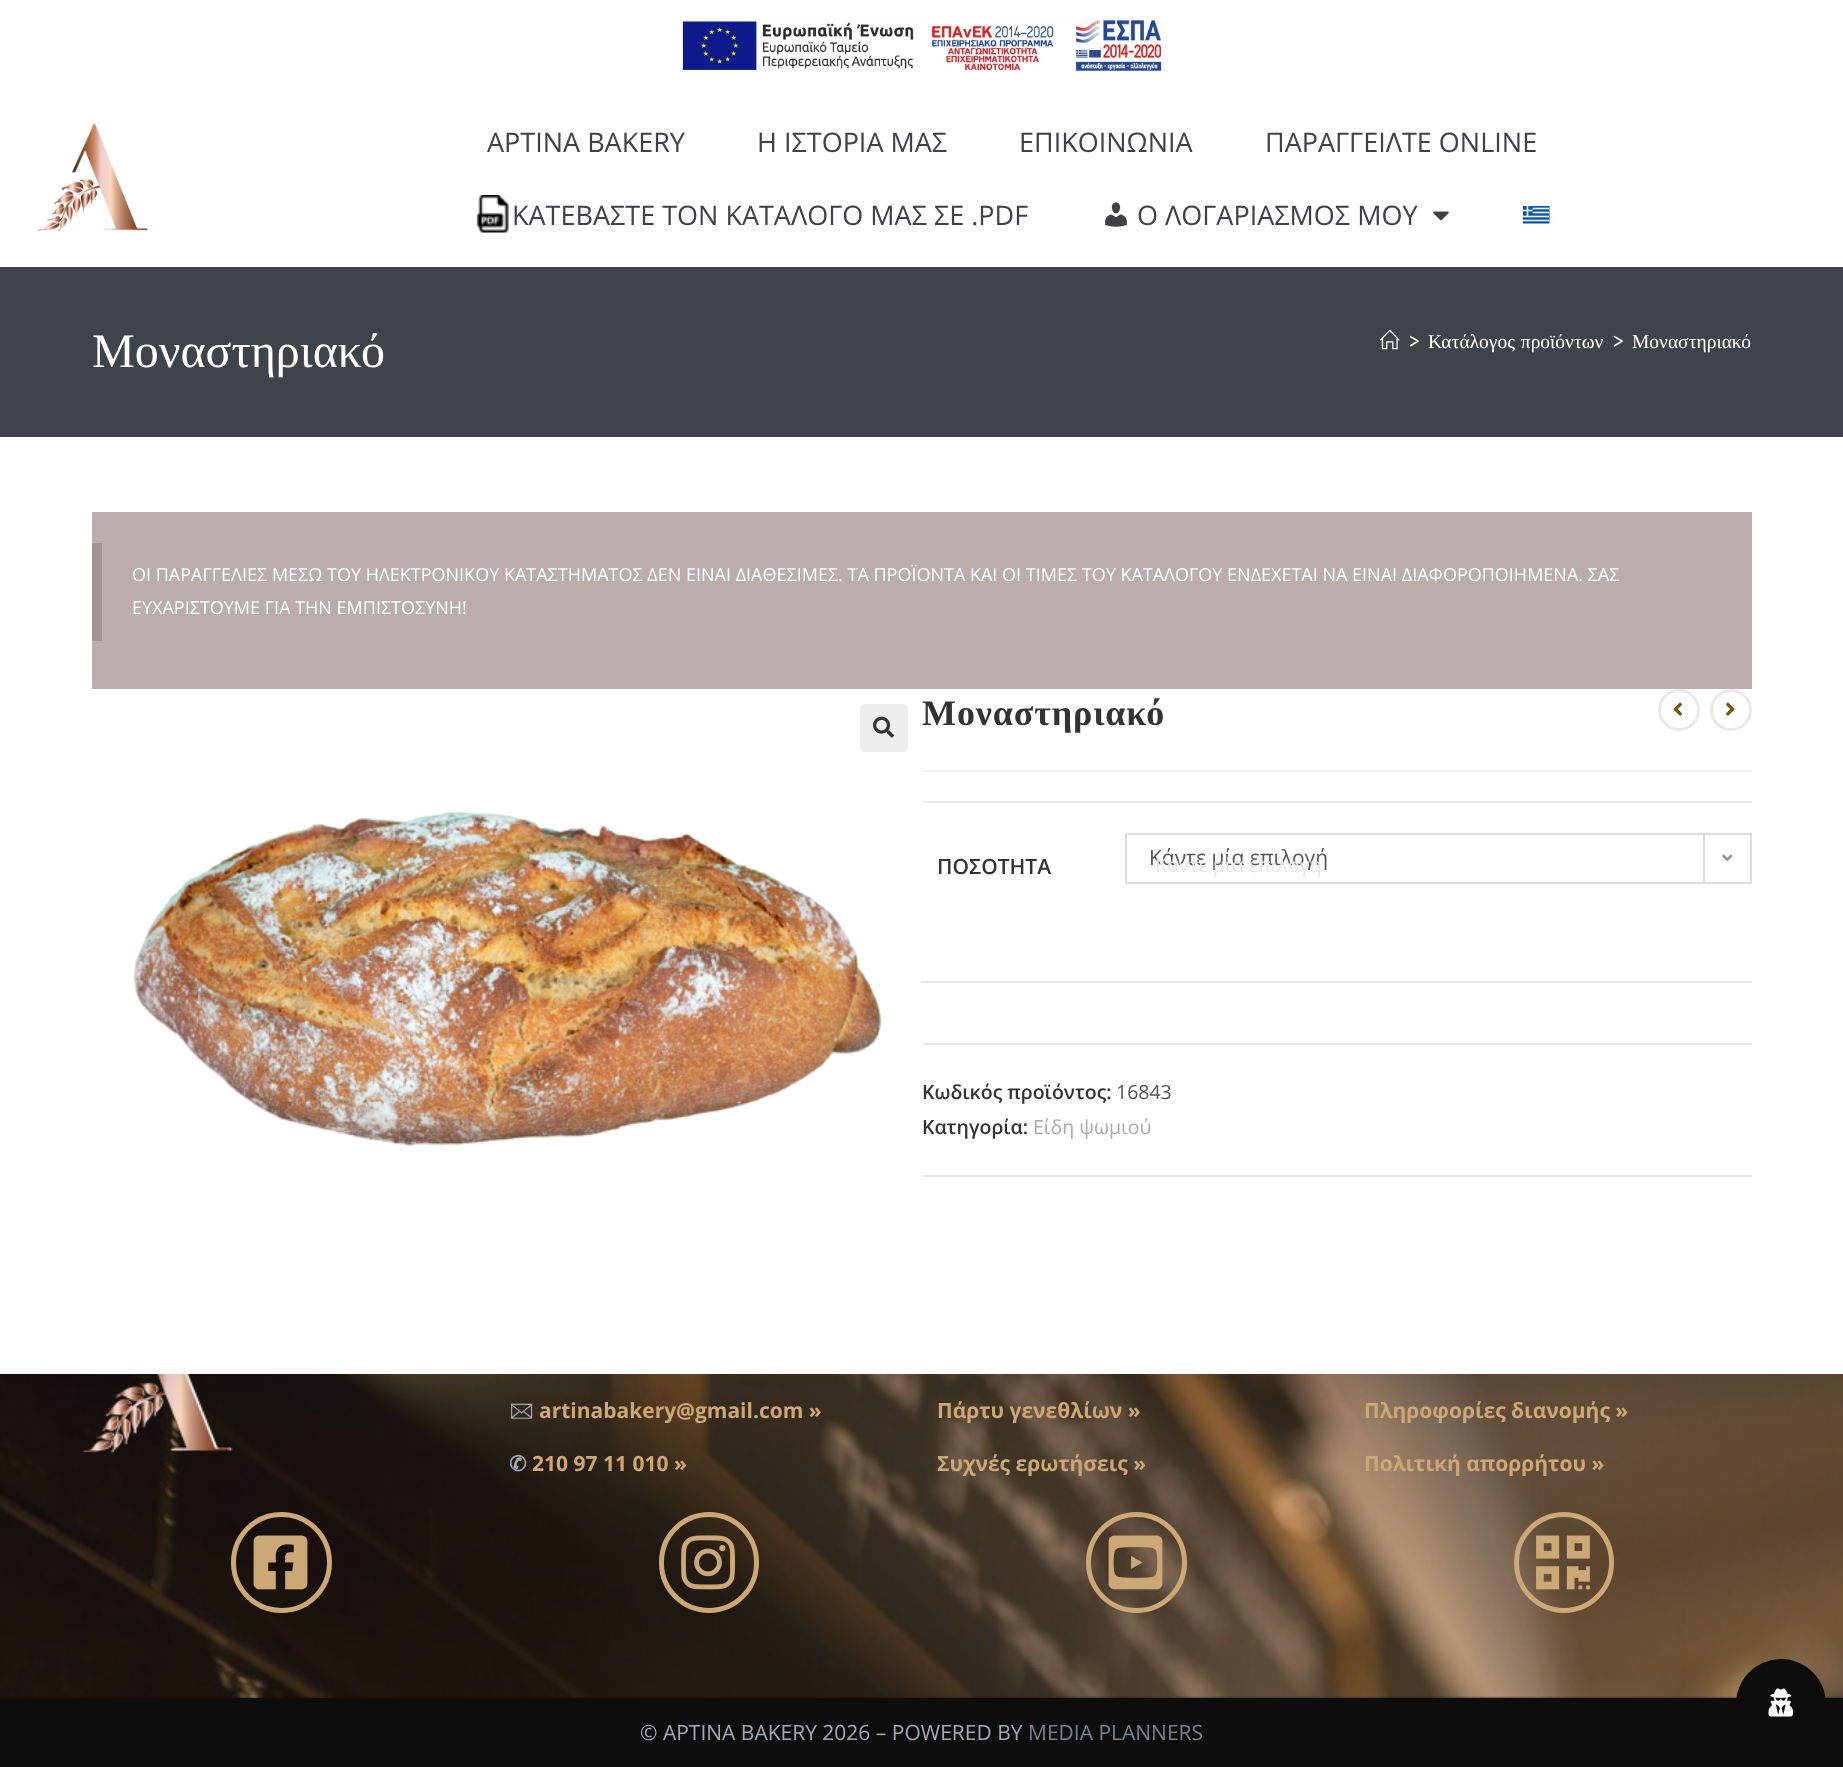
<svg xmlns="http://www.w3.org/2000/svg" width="1843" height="1767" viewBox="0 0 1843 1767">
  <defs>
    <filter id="blur1" x="-50%" y="-200%" width="200%" height="500%"><feGaussianBlur stdDeviation="30"/></filter>
  </defs>
  <rect width="100%" height="100%" fill="#0d0d0d"/>
  <rect x="0" y="1696" width="1843" height="2" fill="#101010"/>
  <image x="0" y="1374" width="1843" height="324" href="img13.png"/>
  <image x="82" y="1374" width="151" height="80" href="img14.png"/>
  <rect x="0" y="267" width="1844" height="1107" fill="#000000" fill-opacity="0.1" filter="url(#blur1)"/>
  <rect x="0" y="0" width="1843" height="267" fill="#ffffff"/>
  <image x="682" y="19" width="480" height="53" href="img1.png"/>
  <image x="37" y="123" width="111" height="109" href="img2.png"/>
  <text x="487" y="152" font-family="Open Sans" font-size="27" fill="#3f4144">ΑΡΤΙΝΑ BAKERY</text>
  <text x="757" y="152" font-family="Open Sans" font-size="27" fill="#3f4144">Η ΙΣΤΟΡΙΑ ΜΑΣ</text>
  <text x="1019" y="152" font-family="Open Sans" font-size="27" fill="#3f4144">ΕΠΙΚΟΙΝΩΝΙΑ</text>
  <text x="1265" y="152" font-family="Open Sans" font-size="27" fill="#3f4144">ΠΑΡΑΓΓΕΙΛΤΕ ONLINE</text>
  <image x="476" y="195" width="33" height="38" href="img3.png"/>
  <text x="512" y="225" font-family="Open Sans" font-size="27" fill="#3f4144">ΚΑΤΕΒΑΣΤΕ ΤΟΝ ΚΑΤΑΛΟΓΟ ΜΑΣ ΣΕ .PDF</text>
  <image x="1105" y="202" width="22" height="25" href="img4.png"/>
  <text x="1137" y="225" font-family="Open Sans" font-size="27" fill="#3f4144">Ο ΛΟΓΑΡΙΑΣΜΟΣ ΜΟΥ</text>
  <image x="1433" y="211" width="16" height="10" href="img5.png"/>
  <image x="1523" y="206" width="27" height="18" href="img6.png"/>
  <rect x="0" y="437" width="1843" height="937" fill="#ffffff"/>
  <rect x="0" y="267" width="1843" height="170" fill="#3f444a"/>
  <text x="92" y="367" font-family="Liberation Serif" font-size="48" fill="#ffffff">Μοναστηριακό</text>
  <image x="1380" y="329" width="20" height="21" href="img7.png"/>
  <text x="1409" y="348" font-family="Comfortaa" font-size="19.5" fill="#ffffff">&gt;</text>
  <text x="1428" y="348" word-spacing="1" font-family="Liberation Serif" font-size="19.5" fill="#ffffff">Κατάλογος προϊόντων</text>
  <text x="1613" y="348" font-family="Comfortaa" font-size="19.5" fill="#ffffff">&gt;</text>
  <text x="1632" y="348" font-family="Liberation Serif" font-size="19.5" fill="#ffffff">Μοναστηριακό</text>
  <rect x="92" y="512" width="1660" height="177" fill="#bcadad"/>
  <rect x="92" y="543" width="10" height="98" fill="#a09393"/>
  <text x="132" y="581" font-family="Open Sans" font-size="18" fill="#ffffff">ΟΙ ΠΑΡΑΓΓΕΛΙΕΣ ΜΕΣΩ ΤΟΥ ΗΛΕΚΤΡΟΝΙΚΟΥ ΚΑΤΑΣΤΗΜΑΤΟΣ ΔΕΝ ΕΙΝΑΙ ΔΙΑΘΕΣΙΜΕΣ. ΤΑ ΠΡΟΪΟΝΤΑ ΚΑΙ ΟΙ ΤΙΜΕΣ ΤΟΥ ΚΑΤΑΛΟΓΟΥ ΕΝΔΕΧΕΤΑΙ ΝΑ ΕΙΝΑΙ ΔΙΑΦΟΡΟΠΟΙΗΜΕΝΑ. ΣΑΣ</text>
  <text x="132" y="614" font-family="Open Sans" font-size="18" fill="#ffffff">ΕΥΧΑΡΙΣΤΟΥΜΕ ΓΙΑ ΤΗΝ ΕΜΠΙΣΤΟΣΥΝΗ!</text>
  <rect x="860" y="704" width="48" height="48" rx="5" fill="#eeeeee"/>
  <image x="873" y="716" width="21" height="22" href="img8.png"/>
  <image x="133" y="811" width="749" height="336" href="img9.png"/>
  <rect x="923" y="770" width="829" height="2" fill="#f1f1f1"/>
  <text x="922" y="725" font-family="Liberation Serif" font-size="36" font-weight="bold" letter-spacing="0.9" fill="#333333">Μοναστηριακό</text>
  <rect x="923" y="801" width="829" height="2" fill="#eaeaea"/>
  <rect x="923" y="1043" width="829" height="2" fill="#eaeaea"/>
  <text x="937" y="874" font-family="Open Sans" font-size="21" font-weight="600" fill="#333333">ΠΟΣΟΤΗΤΑ</text>
  <rect x="921" y="981" width="831" height="2" fill="#e9e9e9"/>
  <rect x="1126" y="834" width="625" height="49" fill="none" stroke="#dddddd" stroke-width="2"/>
  <text x="1149" y="865" font-family="Open Sans" font-size="21" fill="#555555">Κάντε μία επιλογή</text>
  <rect x="1703" y="834" width="2" height="48" fill="#dddddd"/>
  <image x="1722" y="854" width="11" height="8" href="img10.png"/>
  <text x="1155" y="872" font-family="Open Sans" font-size="19.5" fill="#e7e7e7">Κάντε μία επιλογή</text>
  <rect x="923" y="1175" width="829" height="2" fill="#eaeaea"/>
  <text x="922" y="1099" font-family="Open Sans" font-size="19.5" font-weight="600" fill="#333333">Κωδικός προϊόντος:</text>
  <text x="1116" y="1099" font-family="Open Sans" font-size="19.5" fill="#555555">16843</text>
  <text x="922" y="1134" font-family="Open Sans" font-size="19.5" font-weight="600" fill="#333333">Κατηγορία:</text>
  <text x="1033" y="1134" font-family="Open Sans" font-size="19.5" fill="#ababab">Είδη ψωμιού</text>
  <circle cx="1679" cy="710" r="19.5" fill="none" stroke="#e9e9e9" stroke-width="3"/>
  <image x="1673" y="702" width="9" height="14" href="img11.png"/>
  <circle cx="1731" cy="710" r="19.5" fill="none" stroke="#e9e9e9" stroke-width="3"/>
  <image x="1726" y="702" width="9" height="14" href="img12.png"/>
  <text x="509" y="1418" font-family="'Noto Sans Symbols 2'" font-size="21" font-weight="bold" fill="#a0a8b1">🖂</text>
  <text x="539" y="1418" font-family="Open Sans" font-size="21" font-weight="bold" fill="#cca876">artinabakery@gmail.com »</text>
  <text x="509" y="1471" font-family="DejaVu Sans" font-size="21" font-weight="bold" fill="#a0a8b1">✆</text>
  <text x="532" y="1471" font-family="Open Sans" font-size="21" font-weight="bold" fill="#cca876">210 97 11 010 »</text>
  <text x="937" y="1418" font-family="Open Sans" font-size="21" font-weight="bold" fill="#cca876">Πάρτυ γενεθλίων »</text>
  <text x="937" y="1471" font-family="Open Sans" font-size="21" font-weight="bold" fill="#cca876">Συχνές ερωτήσεις »</text>
  <text x="1364" y="1418" font-family="Open Sans" font-size="21" font-weight="bold" fill="#cca876">Πληροφορίες διανομής »</text>
  <text x="1364" y="1471" font-family="Open Sans" font-size="21" font-weight="bold" fill="#cca876">Πολιτική απορρήτου »</text>
  <circle cx="281.5" cy="1562.5" r="48" fill="none" stroke="#cca876" stroke-width="5"/>
  <image x="253" y="1535" width="55" height="55" href="img15.png"/>
  <rect x="661.5" y="1514.5" width="95" height="96" rx="47.5" fill="none" stroke="#cca876" stroke-width="5"/>
  <image x="681" y="1535" width="54" height="55" href="img16.png"/>
  <circle cx="1136.5" cy="1562.5" r="48" fill="none" stroke="#cca876" stroke-width="5"/>
  <image x="1108" y="1535" width="55" height="55" href="img17.png"/>
  <rect x="1516.5" y="1514.5" width="95" height="96" rx="47.5" fill="none" stroke="#cca876" stroke-width="5"/>
  <image x="1536" y="1535" width="54" height="55" href="img18.png"/>
  <text x="640" y="1740" font-family="Open Sans" font-size="21" fill="#a0a8b1">© ΑΡΤΙΝΑ BAKERY 2026 – POWERED BY</text>
  <text x="1028" y="1740" font-family="Open Sans" font-size="21" fill="#75828c">MEDIA PLANNERS</text>
  <circle cx="1781" cy="1704" r="45" fill="#0d0d0d"/>
  <image x="1768" y="1688" width="25" height="29" href="img19.png"/>
</svg>
